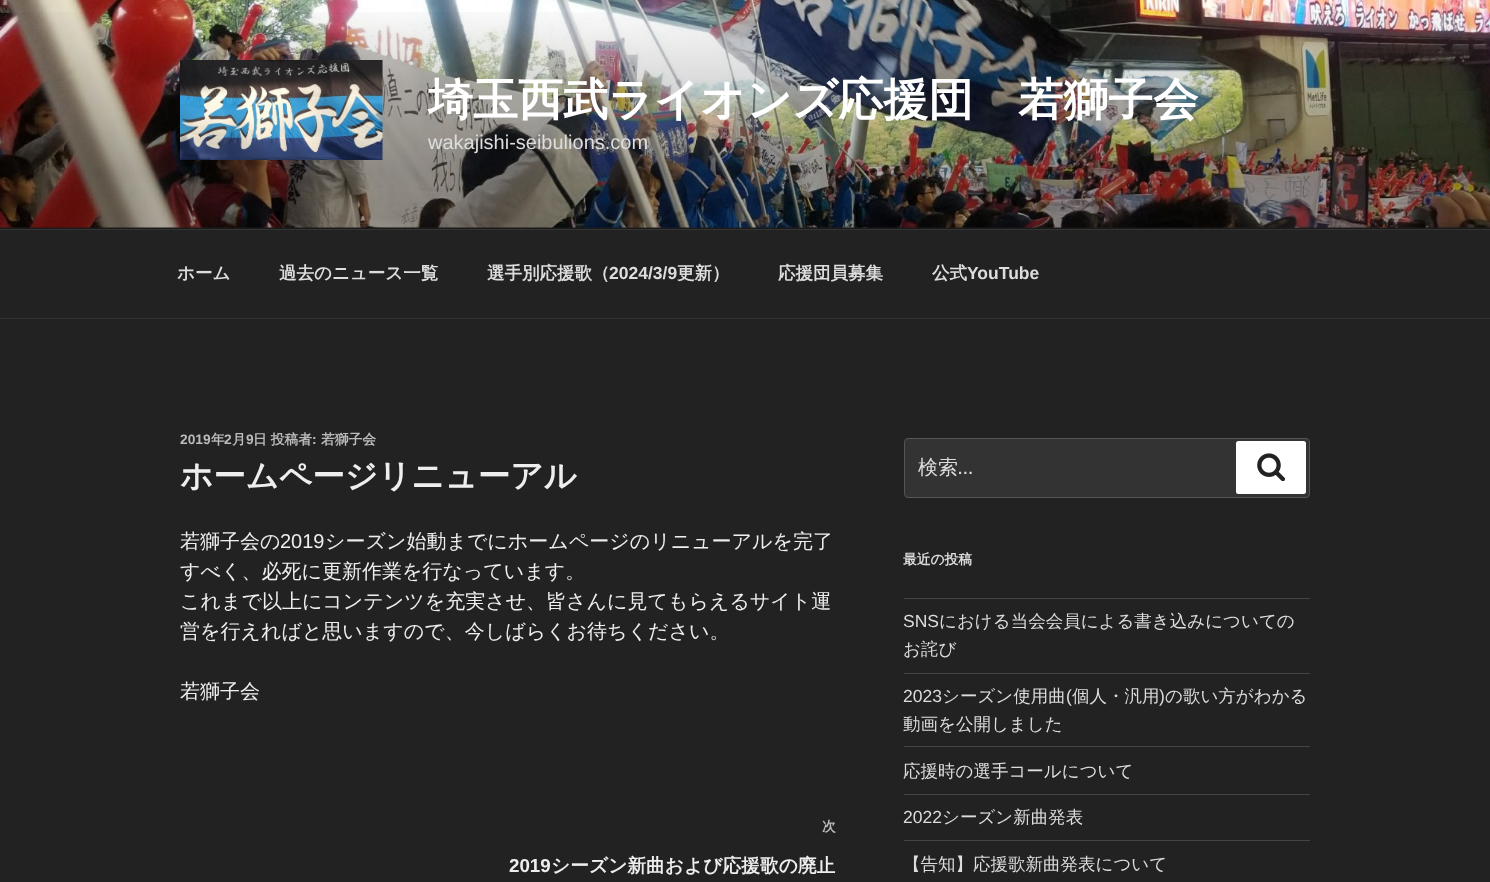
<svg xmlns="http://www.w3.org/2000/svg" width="1490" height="882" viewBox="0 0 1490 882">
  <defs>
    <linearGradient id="g1" gradientUnits="userSpaceOnUse" x1="745" y1="0" x2="745" y2="229"><stop offset="0" stop-color="#000000" stop-opacity="0"/><stop offset="0.75" stop-color="#000000" stop-opacity="0.3"/><stop offset="1" stop-color="#000000" stop-opacity="0.3"/></linearGradient>
  </defs>
  <rect width="100%" height="100%" fill="#222222"/>
  <rect x="0" y="227" width="1490" height="2" fill="#262626"/>
  <image x="0" y="0" width="1490" height="228" href="img1.png"/>
  <rect x="0" y="12" width="1490" height="217" fill="url(#g1)"/>
  <image x="180" y="60" width="203" height="100" href="img2.png"/>
  <text x="428" y="115" font-family="WenQuanYi Zen Hei" font-size="45" font-weight="bold" fill="#ffffff">埼玉西武ライオンズ応援団　若獅子会</text>
  <text x="428" y="149" font-family="Liberation Sans" font-size="20" fill="#dddddd">wakajishi-seibulions.com</text>
  <rect x="0" y="229" width="1490" height="1" fill="#333333"/>
  <rect x="0" y="318" width="1490" height="1" fill="#333333"/>
  <text x="177" y="279" font-family="WenQuanYi Zen Hei" font-size="17.5" font-weight="bold" fill="#dddddd">ホーム</text>
  <text x="279" y="279" font-family="WenQuanYi Zen Hei" font-size="17.5" font-weight="bold" fill="#dddddd">過去のニュース一覧</text>
  <text x="487" y="279" font-family="WenQuanYi Zen Hei" font-size="17.5" font-weight="bold" fill="#dddddd">選手別応援歌（</text>
  <text x="609" y="279" font-family="Liberation Sans" font-size="17.5" font-weight="bold" fill="#dddddd">2024/3/9</text>
  <text x="677" y="279" font-family="WenQuanYi Zen Hei" font-size="17.5" font-weight="bold" fill="#dddddd">更新）</text>
  <text x="778" y="279" font-family="WenQuanYi Zen Hei" font-size="17.5" font-weight="bold" fill="#dddddd">応援団員募集</text>
  <text x="932" y="279" font-family="WenQuanYi Zen Hei" font-size="17.5" font-weight="bold" fill="#dddddd">公式</text>
  <text x="967" y="279" font-family="Liberation Sans" font-size="17.5" font-weight="bold" fill="#dddddd">YouTube</text>
  <text x="180" y="444" font-family="Liberation Sans" font-size="13.75" font-weight="bold" fill="#bbbbbb">2019</text>
  <text x="211" y="444" font-family="WenQuanYi Zen Hei" font-size="13.75" font-weight="bold" fill="#bbbbbb">年</text>
  <text x="224" y="444" font-family="Liberation Sans" font-size="13.75" font-weight="bold" fill="#bbbbbb">2</text>
  <text x="232" y="444" font-family="WenQuanYi Zen Hei" font-size="13.75" font-weight="bold" fill="#bbbbbb">月</text>
  <text x="246" y="444" font-family="Liberation Sans" font-size="13.75" font-weight="bold" fill="#bbbbbb">9</text>
  <text x="253" y="444" font-family="WenQuanYi Zen Hei" font-size="13.75" font-weight="bold" fill="#bbbbbb">日 投稿者</text>
  <text x="312" y="444" font-family="Liberation Sans" font-size="13.75" font-weight="bold" fill="#bbbbbb">:</text>
  <text x="321" y="444" font-family="WenQuanYi Zen Hei" font-size="13.75" font-weight="bold" fill="#bbbbbb">若獅子会</text>
  <text x="180" y="487" font-family="WenQuanYi Zen Hei" font-size="32.5" font-weight="bold" fill="#eeeeee">ホームページリニューアル</text>
  <text x="180" y="548" font-family="WenQuanYi Zen Hei" font-size="20" font-weight="500" fill="#eeeeee">若獅子会の</text>
  <text x="280" y="548" font-family="Liberation Sans" font-size="20" fill="#eeeeee">2019</text>
  <text x="325" y="548" font-family="WenQuanYi Zen Hei" font-size="20" font-weight="500" fill="#eeeeee">シーズン始動までにホームページのリニューアルを完了</text>
  <text x="180" y="578" font-family="WenQuanYi Zen Hei" font-size="20" font-weight="500" fill="#eeeeee">すべく、必死に更新作業を行なっています。</text>
  <text x="180" y="608" font-family="WenQuanYi Zen Hei" font-size="20" font-weight="500" fill="#eeeeee">これまで以上にコンテンツを充実させ、皆さんに見てもらえるサイト運</text>
  <text x="180" y="638" font-family="WenQuanYi Zen Hei" font-size="20" font-weight="500" fill="#eeeeee">営を行えればと思いますので、今しばらくお待ちください。</text>
  <text x="180" y="698" font-family="WenQuanYi Zen Hei" font-size="20" font-weight="500" fill="#eeeeee">若獅子会</text>
  <text x="822" y="831" font-family="WenQuanYi Zen Hei" font-size="13.75" font-weight="bold" fill="#bbbbbb">次</text>
  <text x="509" y="872" font-family="Liberation Sans" font-size="18.75" font-weight="bold" fill="#eeeeee">2019</text>
  <text x="551" y="872" font-family="WenQuanYi Zen Hei" font-size="18.75" font-weight="bold" fill="#eeeeee">シーズン新曲および応援歌の廃止</text>
  <rect x="904.5" y="438.5" width="405" height="59" rx="3.5" fill="#333333" stroke="#555555"/>
  <text x="918" y="474" font-family="WenQuanYi Zen Hei" font-size="20" font-weight="500" fill="#dddddd">検索</text>
  <text x="958" y="474" font-family="Libre Franklin" font-size="20" fill="#dddddd">…</text>
  <rect x="1236" y="441" width="70" height="53" rx="2.5" fill="#ffffff"/>
  <image x="1257" y="453" width="28" height="28" href="img3.png"/>
  <text x="903" y="564" font-family="WenQuanYi Zen Hei" font-size="13.75" font-weight="bold" fill="#dddddd">最近の投稿</text>
  <rect x="904" y="598" width="406" height="1" fill="#444444"/>
  <rect x="904" y="673" width="406" height="1" fill="#444444"/>
  <text x="903" y="627" font-family="Liberation Sans" font-size="17.5" fill="#dddddd">SNS</text>
  <text x="939" y="627" font-family="WenQuanYi Zen Hei" font-size="17.5" font-weight="500" fill="#dddddd">における当会会員による書き込みについての</text>
  <text x="903" y="655" font-family="WenQuanYi Zen Hei" font-size="17.5" font-weight="500" fill="#dddddd">お詫び</text>
  <rect x="904" y="746" width="406" height="1" fill="#444444"/>
  <text x="903" y="702" font-family="Liberation Sans" font-size="17.5" fill="#dddddd">2023</text>
  <text x="942" y="702" font-family="WenQuanYi Zen Hei" font-size="17.5" font-weight="500" fill="#dddddd">シーズン使用曲</text>
  <text x="1066" y="702" font-family="Liberation Sans" font-size="17.5" fill="#dddddd">(</text>
  <text x="1072" y="702" font-family="WenQuanYi Zen Hei" font-size="17.5" font-weight="500" fill="#dddddd">個人・汎用</text>
  <text x="1159" y="702" font-family="Liberation Sans" font-size="17.5" fill="#dddddd">)</text>
  <text x="1165" y="702" font-family="WenQuanYi Zen Hei" font-size="17.5" font-weight="500" fill="#dddddd">の歌い方がわかる</text>
  <text x="903" y="730" font-family="WenQuanYi Zen Hei" font-size="17.5" font-weight="500" fill="#dddddd">動画を公開しました</text>
  <rect x="904" y="794" width="406" height="1" fill="#444444"/>
  <text x="903" y="777" font-family="WenQuanYi Zen Hei" font-size="17.5" font-weight="500" fill="#dddddd">応援時の選手コールについて</text>
  <rect x="904" y="840" width="406" height="1" fill="#444444"/>
  <text x="903" y="823" font-family="Liberation Sans" font-size="17.5" fill="#dddddd">2022</text>
  <text x="942" y="823" font-family="WenQuanYi Zen Hei" font-size="17.5" font-weight="500" fill="#dddddd">シーズン新曲発表</text>
  <text x="903" y="870" font-family="WenQuanYi Zen Hei" font-size="17.5" font-weight="500" fill="#dddddd">【告知】応援歌新曲発表について</text>
</svg>
